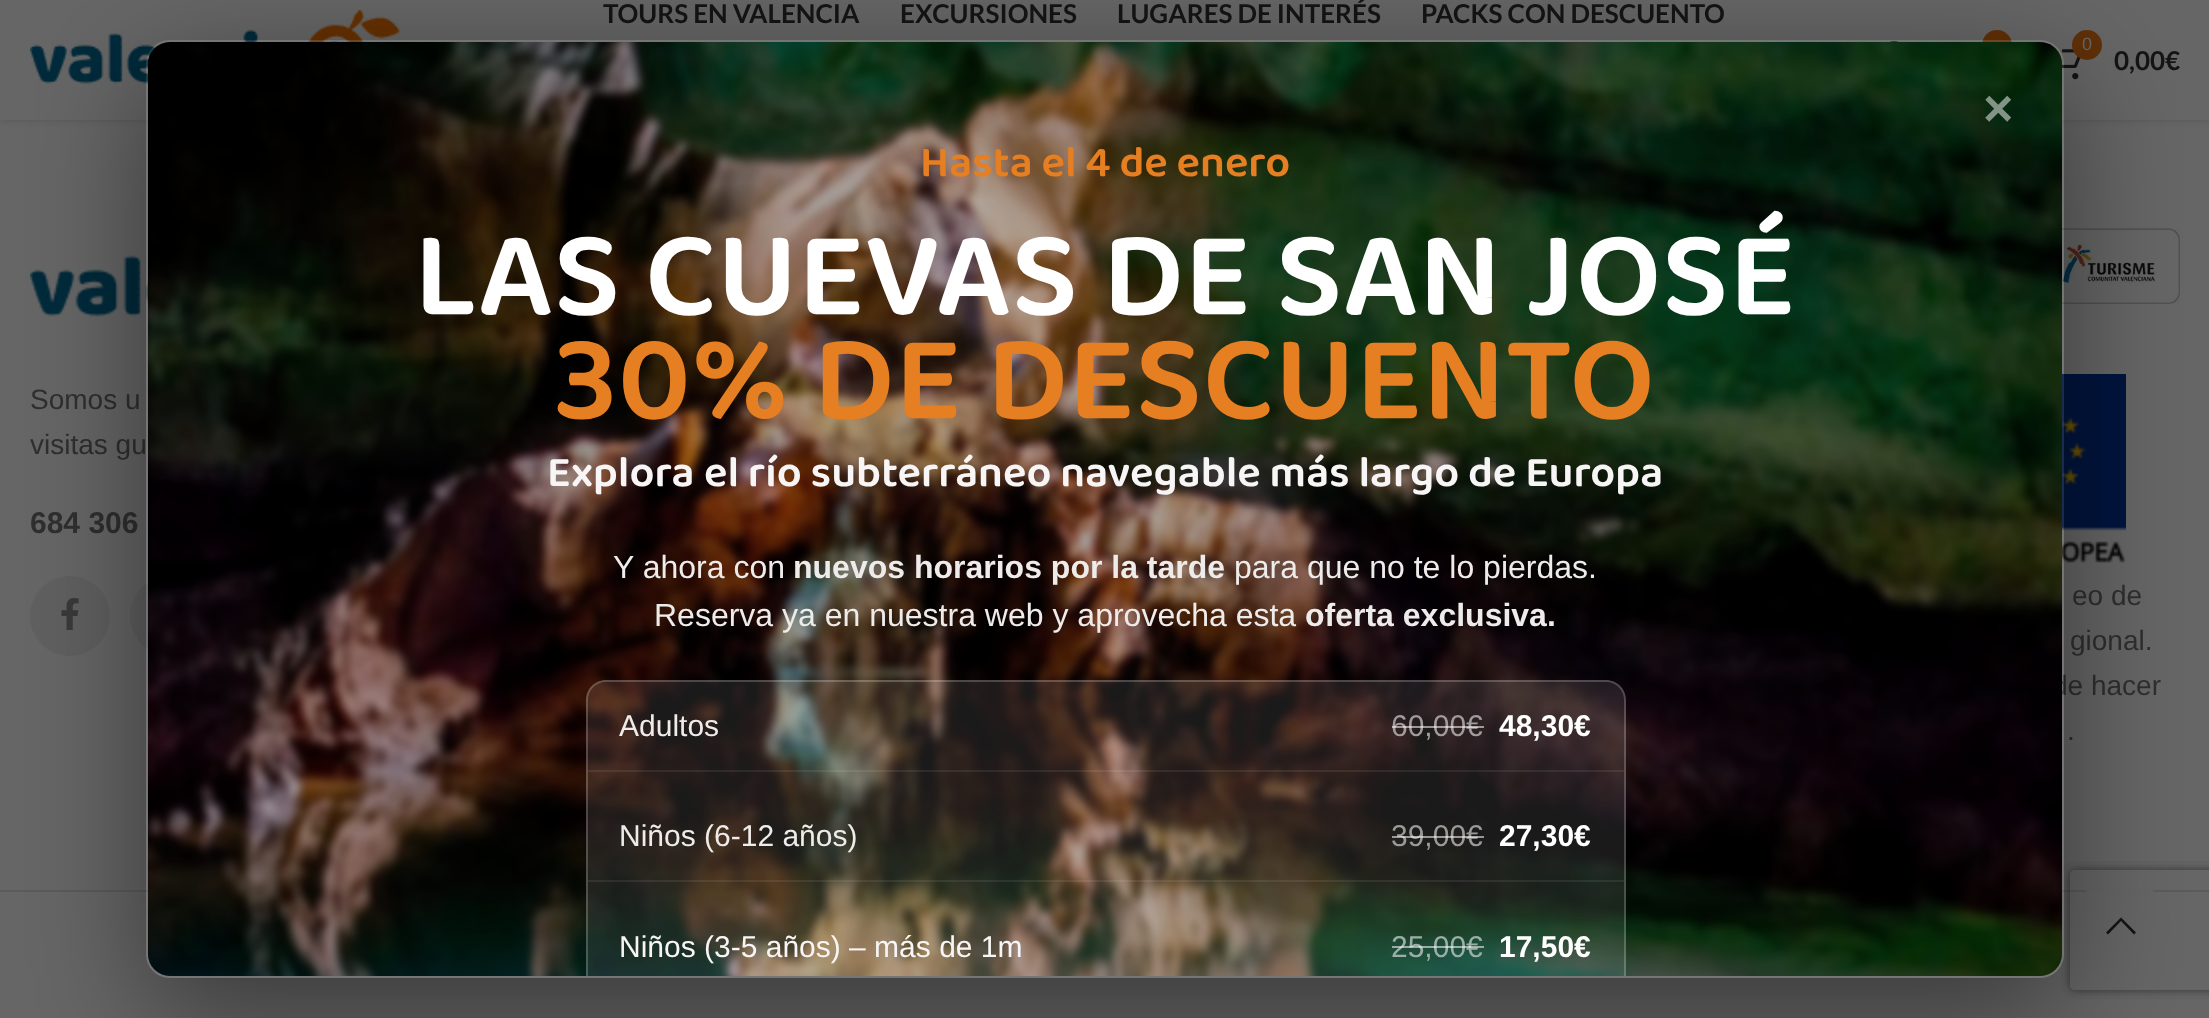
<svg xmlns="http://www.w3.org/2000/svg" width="2209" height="1018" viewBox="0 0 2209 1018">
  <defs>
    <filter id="blur1" x="-50%" y="-200%" width="200%" height="500%"><feGaussianBlur stdDeviation="3"/></filter>
    <clipPath id="clip1"><path d="M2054 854H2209V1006H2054ZM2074 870H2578C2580 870 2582 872 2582 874V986C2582 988 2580 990 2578 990H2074C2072 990 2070 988 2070 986V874C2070 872 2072 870 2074 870Z" clip-rule="evenodd"/></clipPath>
    <filter id="blur2" x="-50%" y="-200%" width="200%" height="500%"><feGaussianBlur stdDeviation="5"/></filter>
    <clipPath id="clip2"><path d="M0 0H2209V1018H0ZM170 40H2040C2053.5 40 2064 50.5 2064 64V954C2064 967.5 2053.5 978 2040 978H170C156.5 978 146 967.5 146 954V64C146 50.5 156.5 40 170 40Z" clip-rule="evenodd"/></clipPath>
    <filter id="blur3" x="-50%" y="-200%" width="200%" height="500%"><feGaussianBlur stdDeviation="60"/></filter>
  </defs>
  <rect width="100%" height="100%" fill="#666666"/>
  <rect x="0" y="2" width="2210" height="120" fill="#000000" fill-opacity="0.1" filter="url(#blur1)"/>
  <rect x="0" y="0" width="2209" height="120" fill="#666666"/>
  <image x="30" y="10" width="371" height="74" href="img1.png"/>
  <text x="603" y="23" font-family="Lato" font-size="26" font-weight="bold" fill="#141414">TOURS EN VALENCIA</text>
  <text x="900" y="23" font-family="Lato" font-size="26" font-weight="bold" fill="#141414">EXCURSIONES</text>
  <text x="1117" y="23" font-family="Lato" font-size="26" font-weight="bold" fill="#141414">LUGARES DE INTERÉS</text>
  <text x="1421" y="23" font-family="Lato" font-size="26" font-weight="bold" fill="#141414">PACKS CON DESCUENTO</text>
  <image x="1889" y="41" width="10" height="1" href="img2.png"/>
  <circle cx="1997" cy="45" r="15" fill="#603007"/>
  <image x="2049" y="44" width="32" height="36" href="img3.png"/>
  <circle cx="2087" cy="45" r="15" fill="#603007"/>
  <text x="2082" y="50" font-family="Liberation Sans" font-size="18" fill="#666666">0</text>
  <text x="2114" y="70" font-family="Lato" font-size="26" font-weight="bold" fill="#141414">0,00€</text>
  <image x="30" y="255" width="118" height="62" href="img4.png"/>
  <text x="30" y="409" font-family="Liberation Sans" font-size="28" fill="#2f2f2f">Somos u</text>
  <text x="30" y="454" font-family="Liberation Sans" font-size="28" fill="#2f2f2f">visitas gu</text>
  <text x="30" y="533" font-family="Liberation Sans" font-size="30" font-weight="bold" fill="#2f2f2f">684 306</text>
  <circle cx="70" cy="616" r="40" fill="#606060"/>
  <image x="61" y="598" width="18" height="32" href="img5.png"/>
  <circle cx="170" cy="616" r="40" fill="#606060"/>
  <image x="2062" y="228" width="118" height="76" href="img6.png"/>
  <image x="2062" y="374" width="64" height="189" href="img7.png"/>
  <text x="2072" y="605" font-family="Liberation Sans" font-size="28" fill="#2f2f2f">eo de</text>
  <text x="2070" y="650" font-family="Liberation Sans" font-size="28" fill="#2f2f2f">gional.</text>
  <text x="2052" y="695" font-family="Liberation Sans" font-size="28" fill="#2f2f2f">de hacer</text>
  <text x="2067" y="740" font-family="Liberation Sans" font-size="28" fill="#2f2f2f">.</text>
  <rect x="0" y="890" width="2209" height="2" fill="#5b5b5b"/>
  <g clip-path="url(#clip1)">
    <rect x="2070" y="870" width="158" height="120" rx="4" fill="#333333" filter="url(#blur2)"/>
  </g>
  <circle cx="2120" cy="928" r="50" fill="#666666" fill-opacity="0.9"/>
  <path d="M2134 934.5L2136 932.5L2121 917.5L2106 932.5L2108 934.5L2121 921Z" fill="#141414"/>
  <g clip-path="url(#clip2)">
    <rect x="146" y="76" width="1918" height="938" rx="24" fill="#000000" fill-opacity="0.45" filter="url(#blur3)"/>
  </g>
  <rect x="147" y="41" width="1916" height="936" rx="23" fill="none" stroke="#ffffff" stroke-opacity="0.1" stroke-width="2"/>
  <image x="148" y="42" width="1914" height="934" href="img8.png"/>
  <rect x="148" y="42" width="1914" height="934" rx="22" fill="#000000" fill-opacity="0.2"/>
  <text x="1983" y="126" font-family="Liberation Sans" font-size="52" font-weight="bold" fill="#839487">×</text>
  <text x="920" y="176" font-family="'Baloo Chettan 2'" font-size="44" font-weight="600" fill="#e67e22">Hasta el 4 de enero</text>
  <text x="414" y="314" font-family="'Baloo Chettan 2'" font-size="124" font-weight="600" fill="#ffffff">LAS CUEVAS DE SAN JOSÉ</text>
  <text x="554" y="418" font-family="'Baloo Chettan 2'" font-size="124" font-weight="600" fill="#e67e22">30% DE DESCUENTO</text>
  <text x="547" y="486" font-family="'Baloo Chettan 2'" font-size="44" font-weight="600" fill="#f7f5f5">Explora</text>
  <text x="704" y="486" font-family="'Baloo Chettan 2'" font-size="44" font-weight="600" fill="#f7f5f5">el río subterráneo navegable más largo de Europa</text>
  <text x="613" y="578" font-family="Liberation Sans" font-size="32" fill="#eeeceb">Y ahora con</text>
  <text x="793" y="578" font-family="Liberation Sans" font-size="32" font-weight="bold" fill="#eeeceb">nuevos horarios por la tarde</text>
  <text x="1234" y="578" font-family="Liberation Sans" font-size="32" fill="#eeeceb">para que no te lo pierdas.</text>
  <text x="654" y="626" font-family="Liberation Sans" font-size="32" fill="#eeeceb">Reserva ya en nuestra web y aprovecha esta</text>
  <text x="1305" y="626" font-family="Liberation Sans" font-size="32" font-weight="bold" fill="#eeeceb">oferta exclusiva.</text>
  <path d="M606 680H1606C1617 680 1626 689 1626 700V976H586V700C586 689 595 680 606 680Z" fill="#ffffff" fill-opacity="0.1"/>
  <path d="M606 680C595 680 586 689 586 700V976H588V700C588 690 596 682 606 682H1606C1616 682 1624 690 1624 700V976H1626V700C1626 689 1617 680 1606 680Z" fill="#ffffff" fill-opacity="0.2"/>
  <rect x="588" y="770" width="1036" height="2" fill="#ffffff" fill-opacity="0.08"/>
  <text x="619" y="736" font-family="Liberation Sans" font-size="30" fill="#eeeceb">Adultos</text>
  <text x="1391" y="736" font-family="Liberation Sans" font-size="30" fill="#a09b9c">60,00€</text>
  <rect x="1392" y="726" width="92" height="2" fill="#ffffff" fill-opacity="0.55"/>
  <text x="1499" y="736" font-family="Liberation Sans" font-size="30" font-weight="bold" fill="#ffffff">48,30€</text>
  <rect x="588" y="880" width="1036" height="2" fill="#ffffff" fill-opacity="0.08"/>
  <text x="619" y="846" font-family="Liberation Sans" font-size="30" fill="#eeeceb">Niños (6-12 años)</text>
  <text x="1391" y="846" font-family="Liberation Sans" font-size="30" fill="#9a9a99">39,00€</text>
  <rect x="1392" y="836" width="92" height="2" fill="#ffffff" fill-opacity="0.55"/>
  <text x="1499" y="846" font-family="Liberation Sans" font-size="30" font-weight="bold" fill="#ffffff">27,30€</text>
  <text x="619" y="957" font-family="Liberation Sans" font-size="30" fill="#f7f5f5">Niños (3-5 años) – más de 1m</text>
  <text x="1391" y="957" font-family="Liberation Sans" font-size="30" fill="#9aafa6">25,00€</text>
  <rect x="1392" y="946" width="92" height="2" fill="#ffffff" fill-opacity="0.55"/>
  <text x="1499" y="957" font-family="Liberation Sans" font-size="30" font-weight="bold" fill="#ffffff">17,50€</text>
</svg>
